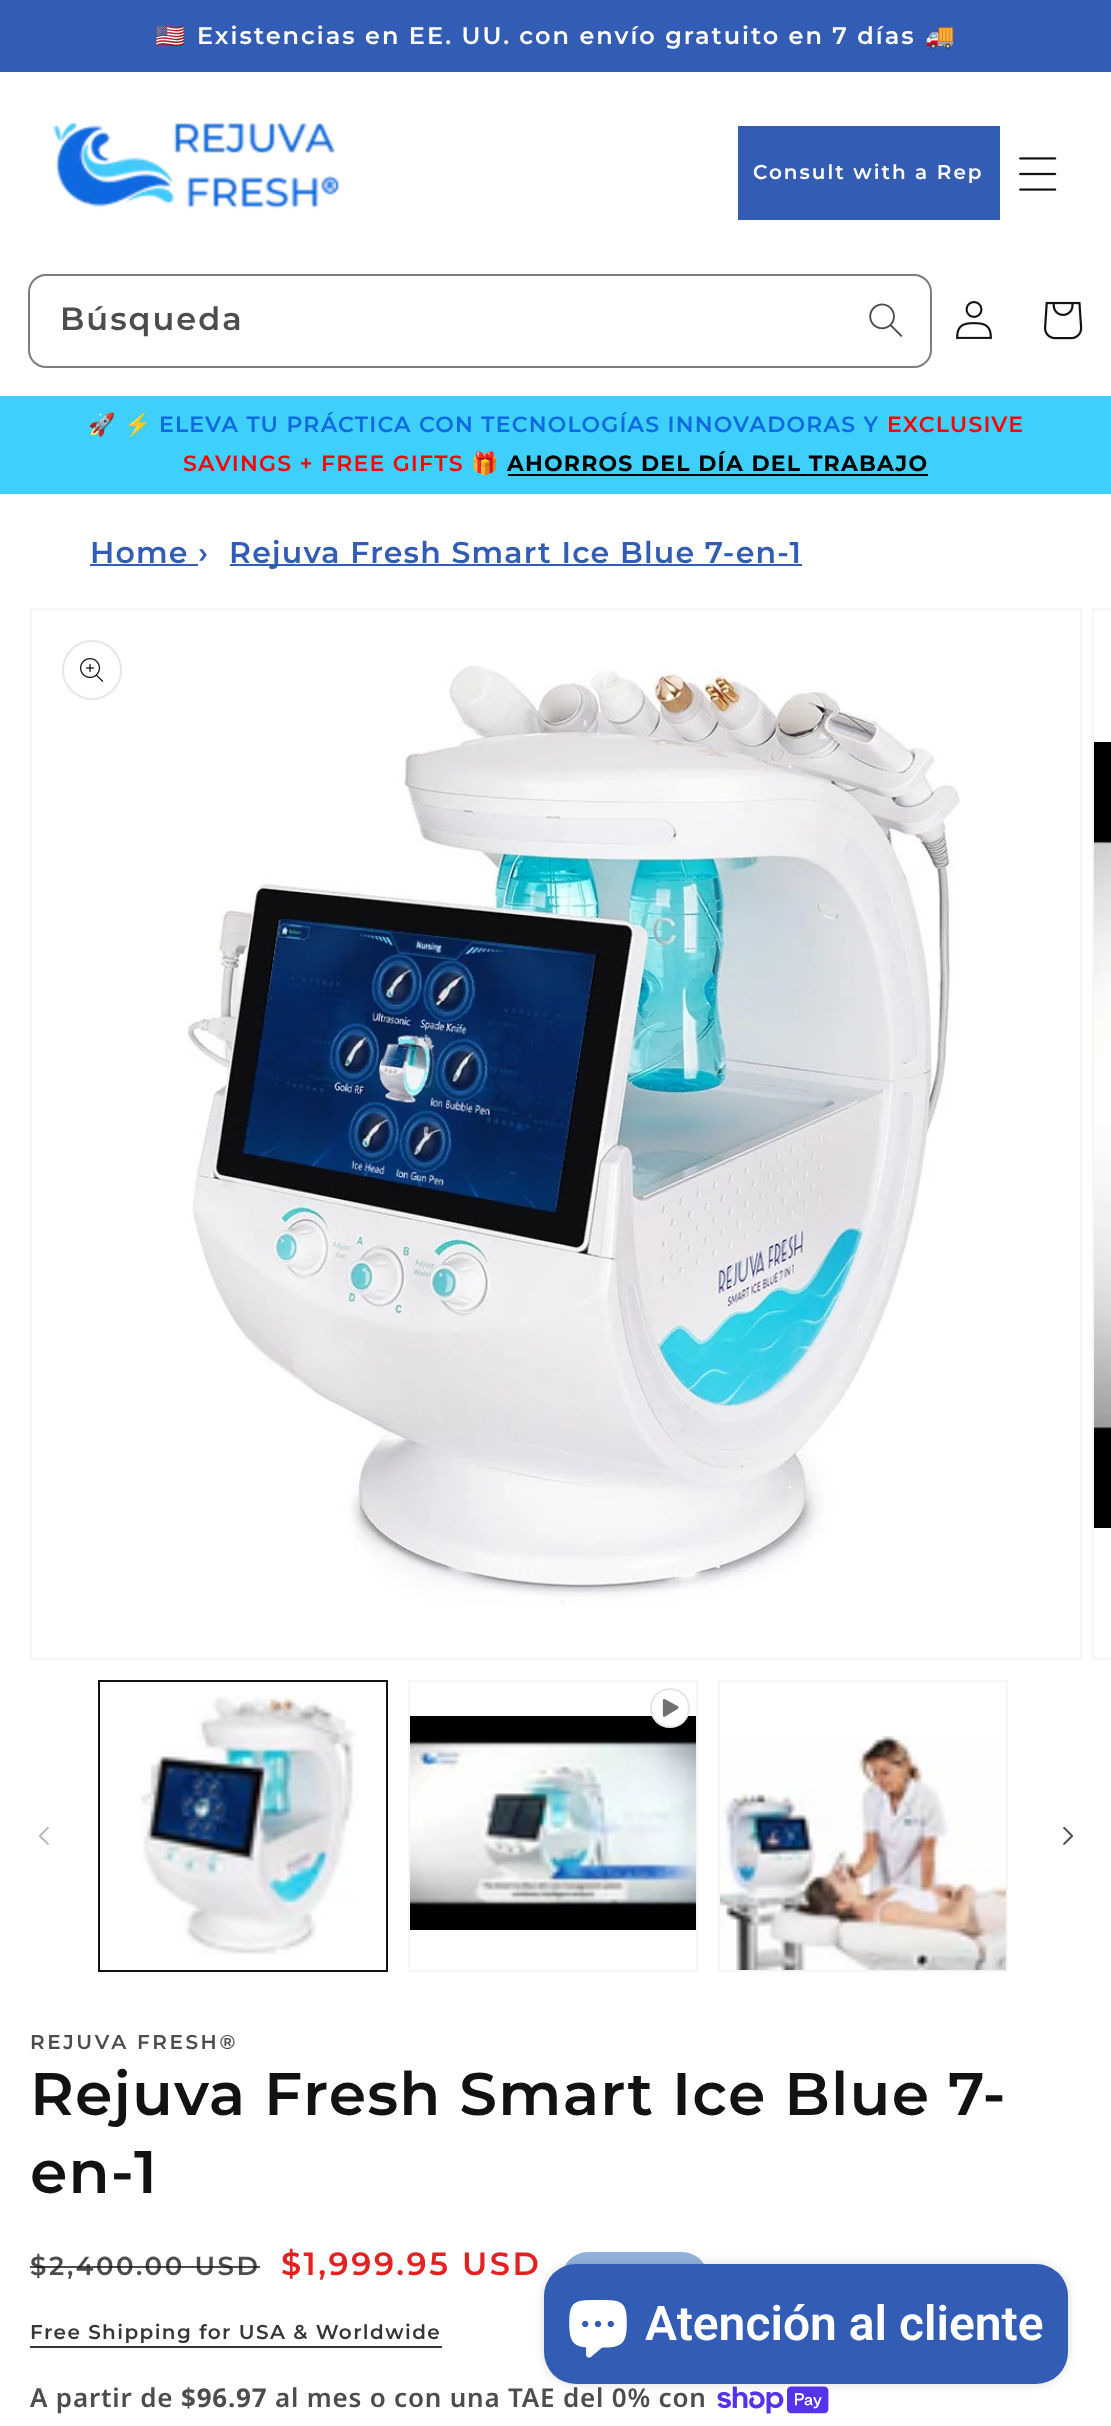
<svg xmlns="http://www.w3.org/2000/svg" width="1111" height="2426" viewBox="0 0 1111 2426">
  <defs>
    <filter id="blur1" x="-50%" y="-200%" width="200%" height="500%"><feGaussianBlur stdDeviation="5"/></filter>
  </defs>
  <rect width="100%" height="100%" fill="#ffffff"/>
  <rect x="0" y="0" width="1111" height="72" fill="#335db4"/>
  <text x="155" y="44" font-family="Noto Color Emoji" font-size="24" font-weight="bold" letter-spacing="2" fill="#ffffff">🇺🇸</text>
  <text x="197" y="44" word-spacing="-0.25" font-family="Montserrat" font-size="24" font-weight="600" letter-spacing="2" fill="#ffffff">Existencias en EE. UU. con envío gratuito en 7 días</text>
  <text x="925" y="44" font-family="Noto Color Emoji" font-size="24" font-weight="bold" letter-spacing="2" fill="#ffffff">🚚</text>
  <image x="53" y="121" width="287" height="88" href="img1.png"/>
  <rect x="739" y="127" width="260" height="92" fill="none" stroke="#335db4" stroke-width="2"/>
  <rect x="740" y="128" width="258" height="90" fill="#335db4"/>
  <text x="753" y="179" font-family="Montserrat" font-size="20" font-weight="600" letter-spacing="2" fill="#ffffff">Consult with a Rep</text>
  <image x="1019" y="157" width="38" height="34" href="img2.png"/>
  <rect x="29" y="275" width="902" height="92" rx="17" fill="none" stroke="#7d7d7d" stroke-width="2"/>
  <text x="60" y="330" font-family="Montserrat" font-size="32" font-weight="600" letter-spacing="2" fill="#4d4d4d">Búsqueda</text>
  <image x="869" y="303" width="34" height="34" href="img3.png"/>
  <image x="956" y="301" width="36" height="38" href="img4.png"/>
  <image x="1044" y="301" width="39" height="39" href="img5.png"/>
  <rect x="0" y="396" width="1111" height="98" fill="#3ecffa"/>
  <text x="88" y="432" font-family="Noto Color Emoji" font-size="22" font-weight="bold" letter-spacing="1.2" fill="#0e6ae3">🚀</text>
  <text x="124" y="432" font-family="Noto Color Emoji" font-size="22" font-weight="bold" letter-spacing="1.2" fill="#0e6ae3">⚡</text>
  <text x="159" y="432" font-family="Montserrat" font-size="22" font-weight="600" letter-spacing="1.2" fill="#0e6ae3">ELEVA TU PRÁCTICA CON TECNOLOGÍAS INNOVADORAS Y</text>
  <text x="887" y="432" font-family="Montserrat" font-size="22" font-weight="600" letter-spacing="1.2" fill="#ff0000">EXCLUSIVE</text>
  <text x="183" y="471" font-family="Montserrat" font-size="22" font-weight="600" letter-spacing="1.2" fill="#ff0000">SAVINGS + FREE GIFTS</text>
  <text x="471" y="471" font-family="Noto Color Emoji" font-size="22" font-weight="bold" letter-spacing="1.2" fill="#ff0000">🎁</text>
  <text x="507" y="471" font-family="Montserrat" font-size="22" font-weight="bold" letter-spacing="1.2" fill="#000000">AHORROS DEL DÍA DEL TRABAJO</text>
  <rect x="508" y="474" width="420" height="2" fill="#000000"/>
  <text x="90" y="563" font-family="Montserrat" font-size="30" font-weight="600" letter-spacing="1.2" fill="#335db4">Home ›</text>
  <rect x="90" y="564" width="108" height="2" fill="#335db4"/>
  <rect x="230" y="564" width="572" height="2" fill="#335db4"/>
  <text x="229" y="563" font-family="Montserrat" font-size="30" font-weight="600" letter-spacing="1.2" fill="#335db4">Rejuva Fresh Smart Ice Blue 7-en-1</text>
  <rect x="31" y="609" width="1050" height="1050" fill="none" stroke="#f6f6f6" stroke-width="2"/>
  <circle cx="92" cy="670" r="29" fill="none" stroke="#e7e7e7" stroke-width="2"/>
  <image x="80" y="658" width="24" height="24" href="img6.png"/>
  <image x="187" y="665" width="773" height="938" href="img7.png"/>
  <rect x="1093" y="609" width="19" height="1050" fill="none" stroke="#f6f6f6" stroke-width="2"/>
  <image x="1094" y="742" width="17" height="786" href="img8.png"/>
  <image x="39" y="1827" width="10" height="18" href="img9.png"/>
  <rect x="99" y="1681" width="288" height="290" fill="none" stroke="#121212" stroke-width="2"/>
  <image x="140" y="1696" width="218" height="259" href="img10.png"/>
  <rect x="409" y="1681" width="288" height="290" fill="none" stroke="#f6f6f6" stroke-width="2"/>
  <image x="410" y="1716" width="286" height="214" href="img11.png"/>
  <circle cx="670" cy="1708" r="20" fill="#ffffff"/>
  <circle cx="670" cy="1708" r="19" fill="none" stroke="#121212" stroke-opacity="0.1" stroke-width="2"/>
  <image x="662" y="1699" width="17" height="18" href="img12.png"/>
  <rect x="719" y="1681" width="288" height="290" fill="none" stroke="#f6f6f6" stroke-width="2"/>
  <image x="720" y="1735" width="286" height="235" href="img13.png"/>
  <image x="1063" y="1826" width="11" height="19" href="img14.png"/>
  <text x="30" y="2049" font-family="Montserrat" font-size="20" font-weight="600" letter-spacing="2.6" fill="#4d4d4d">REJUVA FRESH®</text>
  <text x="30" y="2115" font-family="Montserrat" font-size="60" font-weight="600" letter-spacing="1.2" fill="#121212">Rejuva Fresh Smart Ice Blue 7-</text>
  <text x="30" y="2193" font-family="Montserrat" font-size="60" font-weight="600" letter-spacing="1.2" fill="#121212">en-1</text>
  <text x="30" y="2275" font-family="Montserrat" font-size="26" font-weight="600" letter-spacing="2.6" fill="#4d4d4d">$2,400.00 USD</text>
  <rect x="30" y="2266" width="230" height="2" fill="#121212" fill-opacity="0.75"/>
  <text x="281" y="2275" font-family="Montserrat" font-size="32" font-weight="600" letter-spacing="2.6" fill="#e22120">$1,999.95 USD</text>
  <rect x="563" y="2253" width="144" height="50" rx="25" fill="#90b3dc" stroke="#90b3dc" stroke-width="2"/>
  <text x="30" y="2339" font-family="Montserrat" font-size="20" font-weight="600" letter-spacing="1.4" fill="#363636">Free Shipping for USA &amp; Worldwide</text>
  <rect x="30" y="2346" width="412" height="2" fill="#363636"/>
  <text x="30" y="2407" font-family="Noto Sans" font-size="26" font-weight="600" letter-spacing="0.8" fill="#4d4d4d">A partir de</text>
  <text x="181" y="2407" font-family="Noto Sans" font-size="26" font-weight="bold" letter-spacing="0.8" fill="#4d4d4d">$96.97</text>
  <text x="275" y="2407" font-family="Noto Sans" font-size="26" font-weight="600" letter-spacing="0.8" fill="#4d4d4d">al mes o con una TAE del 0% con</text>
  <image x="717" y="2386" width="112" height="28" href="img15.png"/>
  <rect x="544" y="2264" width="524" height="120" rx="32" fill="#000000" fill-opacity="0.15" filter="url(#blur1)"/>
  <rect x="544" y="2264" width="524" height="120" rx="32" fill="#335db4"/>
  <image x="569" y="2300" width="58" height="58" href="img16.png"/>
  <text x="645" y="2340" font-family="Roboto" font-size="48" font-weight="600" fill="#ffffff">Atención al cliente</text>
</svg>
